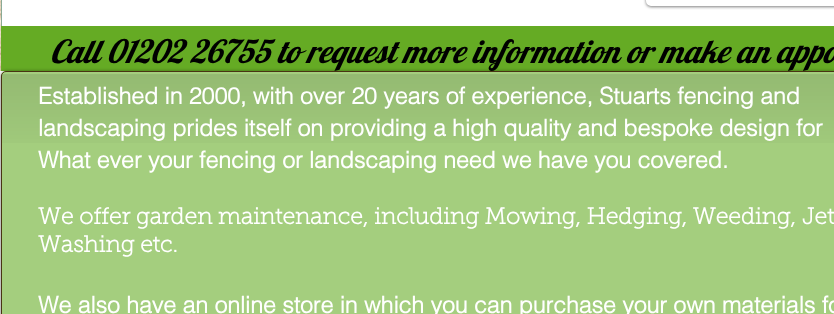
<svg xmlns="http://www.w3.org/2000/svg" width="834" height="314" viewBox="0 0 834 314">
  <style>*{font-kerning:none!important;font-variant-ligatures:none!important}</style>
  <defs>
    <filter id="blur1" x="-50%" y="-200%" width="200%" height="500%"><feGaussianBlur stdDeviation="1.5"/></filter>
    <clipPath id="clip1"><path d="M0 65H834V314H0ZM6 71H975C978 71 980 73 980 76V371C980 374 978 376 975 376H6C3 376 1 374 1 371V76C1 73 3 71 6 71Z" clip-rule="evenodd"/></clipPath>
    <filter id="blur2" x="-50%" y="-200%" width="200%" height="500%"><feGaussianBlur stdDeviation="2"/></filter>
  </defs>
  <rect width="100%" height="100%" fill="#ffffff"/>
  <image x="0" y="0" width="1" height="71" href="img1.png"/>
  <rect x="1.5" y="-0.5" width="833" height="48" fill="none" stroke="#8baa95"/>
  <rect x="646" y="-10" width="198" height="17" rx="5" fill="#000000" fill-opacity="0.5" filter="url(#blur1)"/>
  <rect x="647" y="-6" width="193" height="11" rx="4" fill="#ffffff" stroke="#ffffff" stroke-width="2"/>
  <rect x="1" y="26" width="833" height="45" fill="#65ab24"/>
  <text x="50" y="63" font-family="Lobster" font-size="32" font-style="italic" fill="#000000">Call 01202 26755 to request more information or make an appo</text>
  <g clip-path="url(#clip1)">
    <rect x="1" y="72" width="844" height="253" rx="5" fill="#000000" fill-opacity="0.6" filter="url(#blur2)"/>
  </g>
  <rect x="1" y="71" width="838" height="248" rx="5" fill="#65ab24" fill-opacity="0.59"/>
  <image x="1" y="74" width="833" height="69" href="img2.png"/>
  <rect x="1.5" y="71.5" width="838" height="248" rx="4.5" fill="none" stroke="#493414"/>
  <text x="38" y="104" font-family="helvetica" font-size="23" font-weight="bold" fill="#ffffff">Established in 2000, with over 20 years of experience, Stuarts fencing and</text>
  <text x="38" y="136" font-family="helvetica" font-size="23" font-weight="bold" fill="#ffffff">landscaping prides itself on providing a high quality and bespoke design for</text>
  <text x="38" y="168" font-family="helvetica" font-size="23" font-weight="bold" fill="#ffffff">What ever your fencing or landscaping need we have you covered.</text>
  <text x="38" y="224" font-family="'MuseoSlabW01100'" font-size="23" font-weight="bold" fill="#ffffff">We offer garden maintenance, including Mowing, Hedging, Weeding,</text>
  <text x="802" y="224" font-family="'MuseoSlabW01100'" font-size="23" font-weight="bold" fill="#ffffff">Jet</text>
  <text x="38" y="252" font-family="'MuseoSlabW01100'" font-size="23" font-weight="bold" fill="#ffffff">Washing etc.</text>
  <text x="38" y="313" font-family="helvetica" font-size="23" font-weight="bold" fill="#ffffff">We also have an online store in which you can purchase your own materials fo</text>
</svg>
